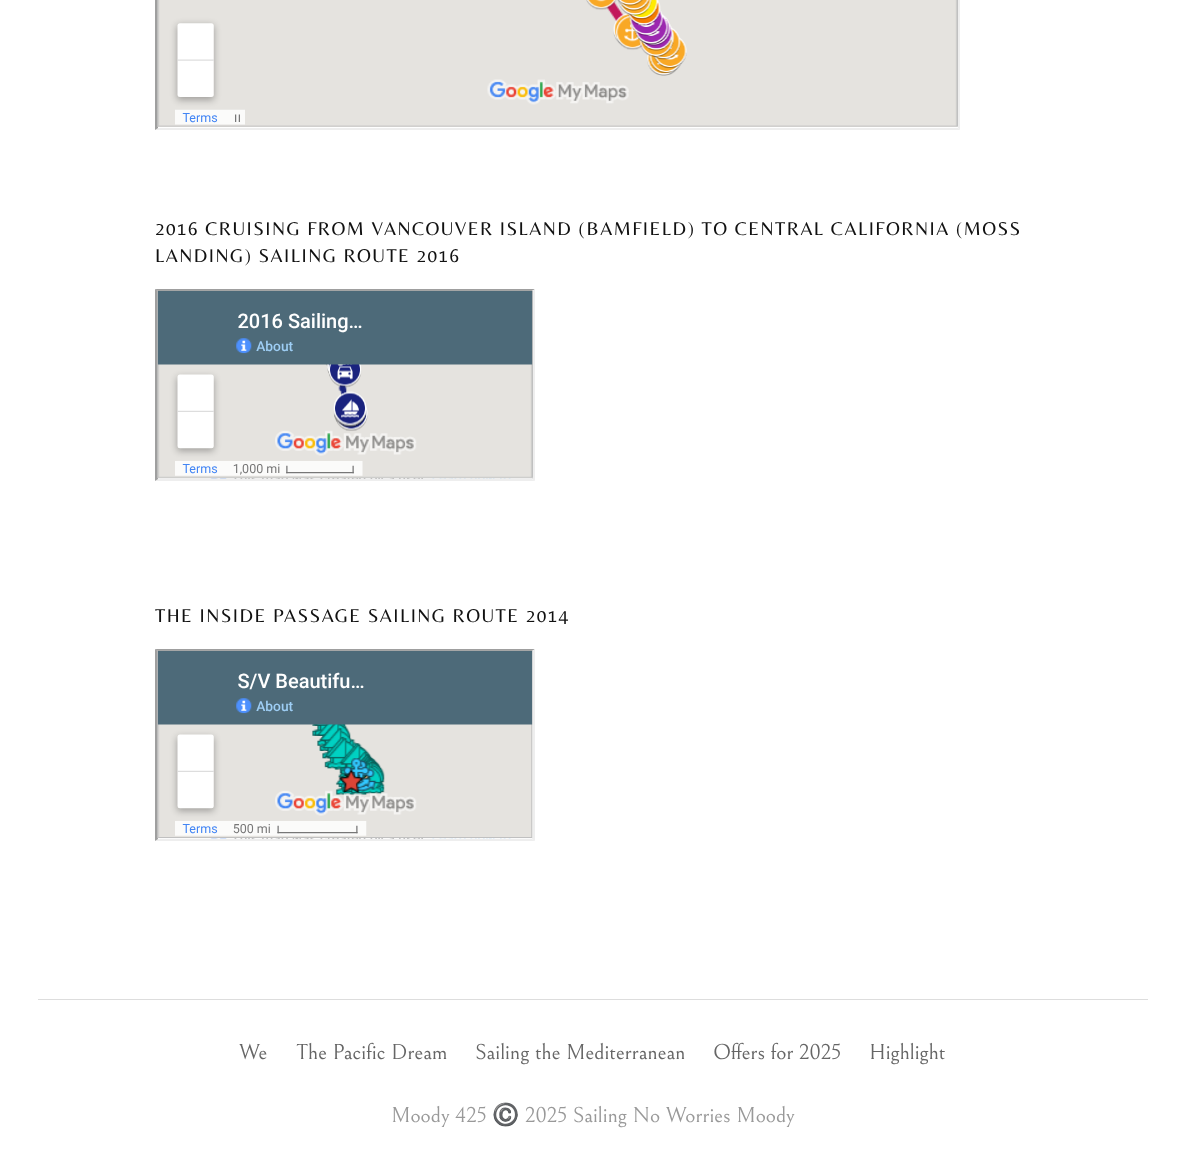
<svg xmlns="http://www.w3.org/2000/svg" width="1185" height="1176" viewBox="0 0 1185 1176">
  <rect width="100%" height="100%" fill="#ffffff"/>
  <path d="M960-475V130L958 128V-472Z" fill="#eeeeee"/>
  <path d="M960 130H155L158 128H958Z" fill="#eeeeee"/>
  <path d="M155 130V-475L158-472V128Z" fill="#9f9f9f"/>
  <image x="157" y="0" width="801" height="127" href="img1.png"/>
  <text x="155" y="235" font-family="Belleza" font-size="19.15" letter-spacing="1.45" fill="#111111">2016 CRUISING FROM VANCOUVER ISLAND (BAMFIELD) TO CENTRAL CALIFORNIA (MOSS</text>
  <text x="155" y="262" font-family="Belleza" font-size="19.15" letter-spacing="1.45" fill="#111111">LANDING) SAILING ROUTE 2016</text>
  <path d="M155 289H535L532 291H158Z" fill="#9f9f9f"/>
  <path d="M535 289V481L532 479V291Z" fill="#eeeeee"/>
  <path d="M535 481H155L158 479H532Z" fill="#eeeeee"/>
  <path d="M155 481V289L158 291V479Z" fill="#9f9f9f"/>
  <image x="157" y="290" width="376" height="189" href="img2.png"/>
  <text x="155" y="622" font-family="Belleza" font-size="19.15" letter-spacing="1.45" fill="#111111">THE INSIDE PASSAGE SAILING ROUTE 2014</text>
  <path d="M155 649H535L532 651H158Z" fill="#9f9f9f"/>
  <path d="M535 649V841L532 839V651Z" fill="#eeeeee"/>
  <path d="M535 841H155L158 839H532Z" fill="#eeeeee"/>
  <path d="M155 841V649L158 651V839Z" fill="#9f9f9f"/>
  <image x="157" y="650" width="376" height="189" href="img3.png"/>
  <rect x="38" y="999" width="1110" height="1" fill="#dddddd"/>
  <text x="239" y="1059" font-family="Bellefair" font-size="21.9" fill="#666666">We</text>
  <text x="296" y="1059" font-family="Bellefair" font-size="21.9" fill="#666666">The Pacific Dream</text>
  <text x="475" y="1059" font-family="Bellefair" font-size="21.9" fill="#666666">Sailing the Mediterranean</text>
  <text x="713" y="1059" font-family="Bellefair" font-size="21.9" fill="#666666">Offers for 2025</text>
  <text x="869" y="1059" font-family="Bellefair" font-size="21.9" fill="#666666">Highlight</text>
  <text x="391" y="1122" font-family="Bellefair" font-size="21.9" fill="#999999">Moody 425</text>
  <text x="492" y="1122" font-family="Noto Color Emoji" font-size="21.9" fill="#999999">©️</text>
  <text x="525" y="1122" font-family="Bellefair" font-size="21.9" fill="#999999">2025 Sailing No Worries Moody</text>
</svg>
